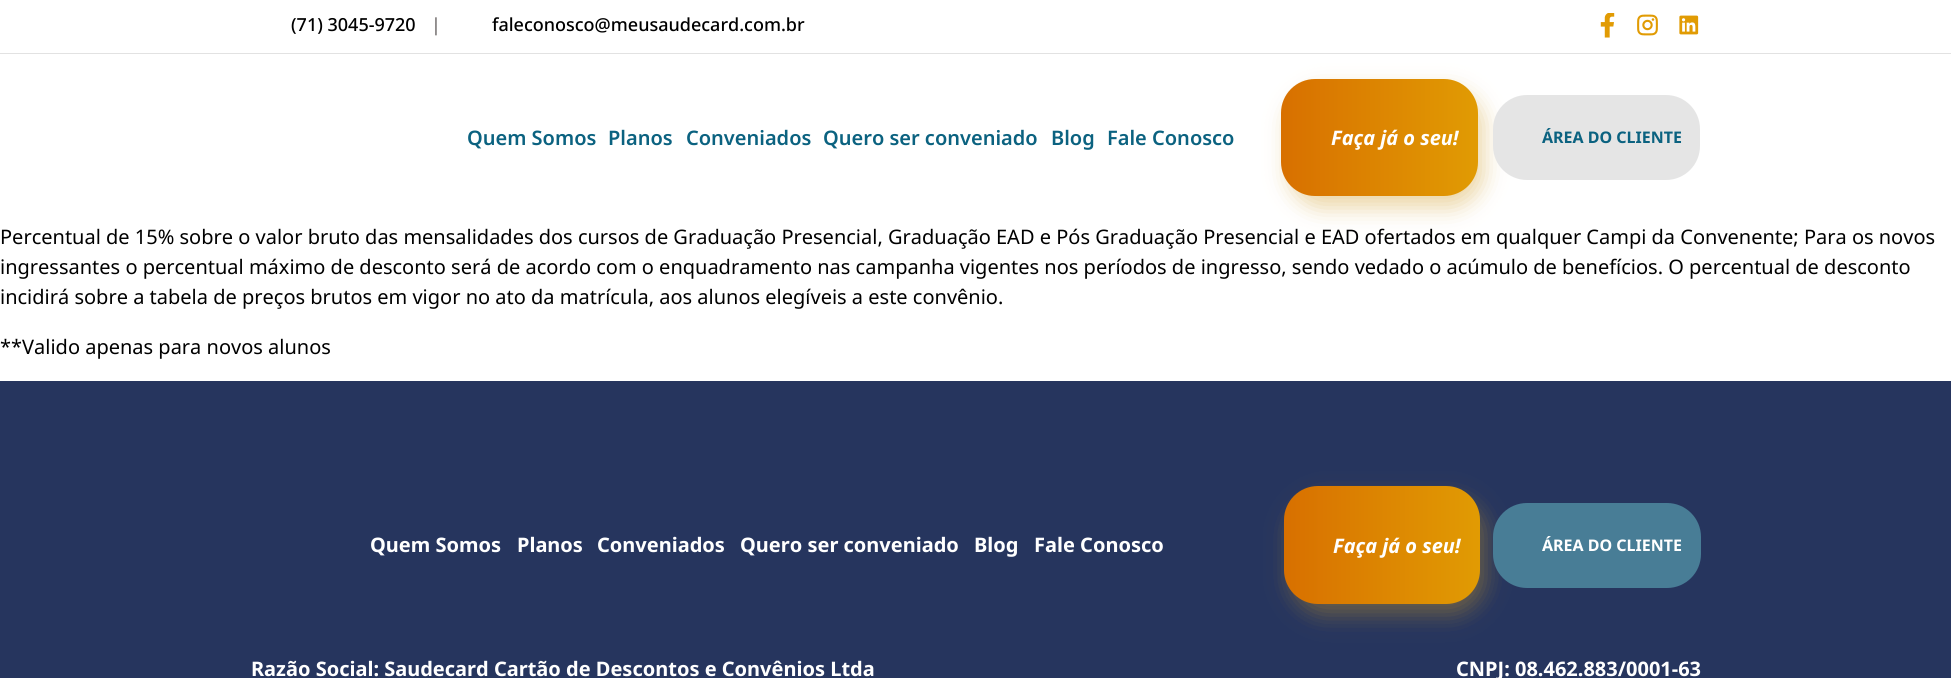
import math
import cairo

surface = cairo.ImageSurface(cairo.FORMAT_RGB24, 1951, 678)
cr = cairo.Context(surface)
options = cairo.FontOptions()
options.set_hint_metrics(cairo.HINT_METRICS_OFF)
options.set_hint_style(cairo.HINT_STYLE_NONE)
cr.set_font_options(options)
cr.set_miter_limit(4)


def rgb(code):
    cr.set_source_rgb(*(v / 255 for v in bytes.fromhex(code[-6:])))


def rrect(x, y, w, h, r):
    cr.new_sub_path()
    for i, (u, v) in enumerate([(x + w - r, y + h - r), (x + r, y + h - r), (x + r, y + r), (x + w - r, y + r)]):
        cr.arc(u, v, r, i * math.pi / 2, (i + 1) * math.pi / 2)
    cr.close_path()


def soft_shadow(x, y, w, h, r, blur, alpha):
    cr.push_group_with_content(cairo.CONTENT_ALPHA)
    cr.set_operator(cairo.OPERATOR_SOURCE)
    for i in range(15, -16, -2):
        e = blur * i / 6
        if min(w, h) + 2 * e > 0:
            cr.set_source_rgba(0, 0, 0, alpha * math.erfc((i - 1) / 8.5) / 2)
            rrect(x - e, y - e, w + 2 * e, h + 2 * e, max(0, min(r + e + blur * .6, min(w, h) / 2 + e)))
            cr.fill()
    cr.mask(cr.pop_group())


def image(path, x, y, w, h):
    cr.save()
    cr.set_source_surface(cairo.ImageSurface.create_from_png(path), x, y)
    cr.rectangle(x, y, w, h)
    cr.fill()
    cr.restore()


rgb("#ffffff")
cr.paint()
rgb("#e2e2e2")
cr.rectangle(0, 53, 1951, 1)
cr.fill()
image("img/1.png", 1600, 13, 15, 25)
image("img/2.png", 1637, 14, 21, 22)
image("img/3.png", 1679, 15, 20, 20)
rgb("#cf9a25")
soft_shadow(1288, 90, 196, 118, 34, 11, 0.4)
gradient = cairo.LinearGradient(1281, 138, 1478, 138)
gradient.add_color_stop_rgba(0, 0.847, 0.439, 0, 1)
gradient.add_color_stop_rgba(1, 0.882, 0.608, 0.012, 1)
cr.set_source(gradient)
rrect(1281, 79, 197, 117, 34)
cr.fill()
rgb("#e5e5e5")
rrect(1493, 95, 207, 85, 34)
cr.fill()
rgb("#26355e")
cr.rectangle(0, 381, 1951, 297)
cr.fill()
rgb("#cf9a25")
soft_shadow(1290, 498, 196, 117, 34, 11, 0.4)
gradient = cairo.LinearGradient(1284, 545, 1480, 545)
gradient.add_color_stop_rgba(0, 0.847, 0.439, 0, 1)
gradient.add_color_stop_rgba(1, 0.882, 0.608, 0.012, 1)
cr.set_source(gradient)
rrect(1284, 486, 196, 118, 34)
cr.fill()
rgb("#487d96")
rrect(1493, 503, 208, 85, 34)
cr.fill()
cr.select_font_face("Noto Sans Medium")
cr.set_font_size(18)
rgb("#000000")
cr.move_to(291, 31)
cr.show_text("(71) 3045-9720")
cr.select_font_face("Noto Sans")
rgb("#605b5b")
cr.move_to(431, 31)
cr.show_text("|")
cr.select_font_face("Noto Sans Medium")
rgb("#000000")
cr.move_to(492, 31)
cr.show_text("faleconosco@meusaudecard.com.br")
cr.select_font_face("Noto Sans SemiBold")
cr.set_font_size(20)
rgb("#0b6280")
for x, y, s in [
    (467, 145, "Quem Somos"),
    (608, 145, "Planos"),
    (686, 145, "Conveniados"),
    (823, 145, "Quero ser conveniado"),
    (1051, 145, "Blog"),
    (1107, 145, "Fale Conosco"),
]:
    cr.move_to(x, y)
    cr.show_text(s)
cr.select_font_face("Noto Sans", cairo.FONT_SLANT_ITALIC, cairo.FONT_WEIGHT_BOLD)
rgb("#ffffff")
cr.move_to(1331, 145)
cr.show_text("Faça já o seu!")
cr.select_font_face("Noto Sans", cairo.FONT_SLANT_NORMAL, cairo.FONT_WEIGHT_BOLD)
cr.set_font_size(16)
rgb("#0b6280")
cr.move_to(1542, 143)
cr.show_text("ÁREA DO CLIENTE")
cr.select_font_face("Noto Sans")
cr.set_font_size(20)
rgb("#000000")
for x, y, s in [
    (0, 244, "Percentual de 15% sobre o valor bruto das mensalidades dos cursos de Graduação Presencial, Graduação EAD e Pós Graduação Presencial e EAD ofertados em qualquer Campi da Convenente; Para os novos"),
    (0, 274, "ingressantes o percentual máximo de desconto será de acordo com o enquadramento nas campanha vigentes nos períodos de ingresso, sendo vedado o acúmulo de benefícios. O percentual de desconto"),
    (0, 304, "incidirá sobre a tabela de preços brutos em vigor no ato da matrícula, aos alunos elegíveis a este convênio."),
    (0, 354, "**Valido apenas para novos alunos"),
]:
    cr.move_to(x, y)
    cr.show_text(s)
cr.select_font_face("Noto Sans", cairo.FONT_SLANT_NORMAL, cairo.FONT_WEIGHT_BOLD)
rgb("#ffffff")
for x, y, s in [
    (370, 552, "Quem Somos"),
    (517, 552, "Planos"),
    (597, 552, "Conveniados"),
    (740, 552, "Quero ser conveniado"),
    (974, 552, "Blog"),
    (1034, 552, "Fale Conosco"),
]:
    cr.move_to(x, y)
    cr.show_text(s)
cr.select_font_face("Noto Sans", cairo.FONT_SLANT_ITALIC, cairo.FONT_WEIGHT_BOLD)
cr.move_to(1333, 553)
cr.show_text("Faça já o seu!")
cr.select_font_face("Noto Sans", cairo.FONT_SLANT_NORMAL, cairo.FONT_WEIGHT_BOLD)
cr.set_font_size(16)
cr.move_to(1542, 551)
cr.show_text("ÁREA DO CLIENTE")
cr.set_font_size(20)
cr.move_to(251, 676)
cr.show_text("Razão Social: Saudecard Cartão de Descontos e Convênios Ltda")
cr.move_to(1456, 676)
cr.show_text("CNPJ: 08.462.883/0001-63")
surface.write_to_png("page.png")
